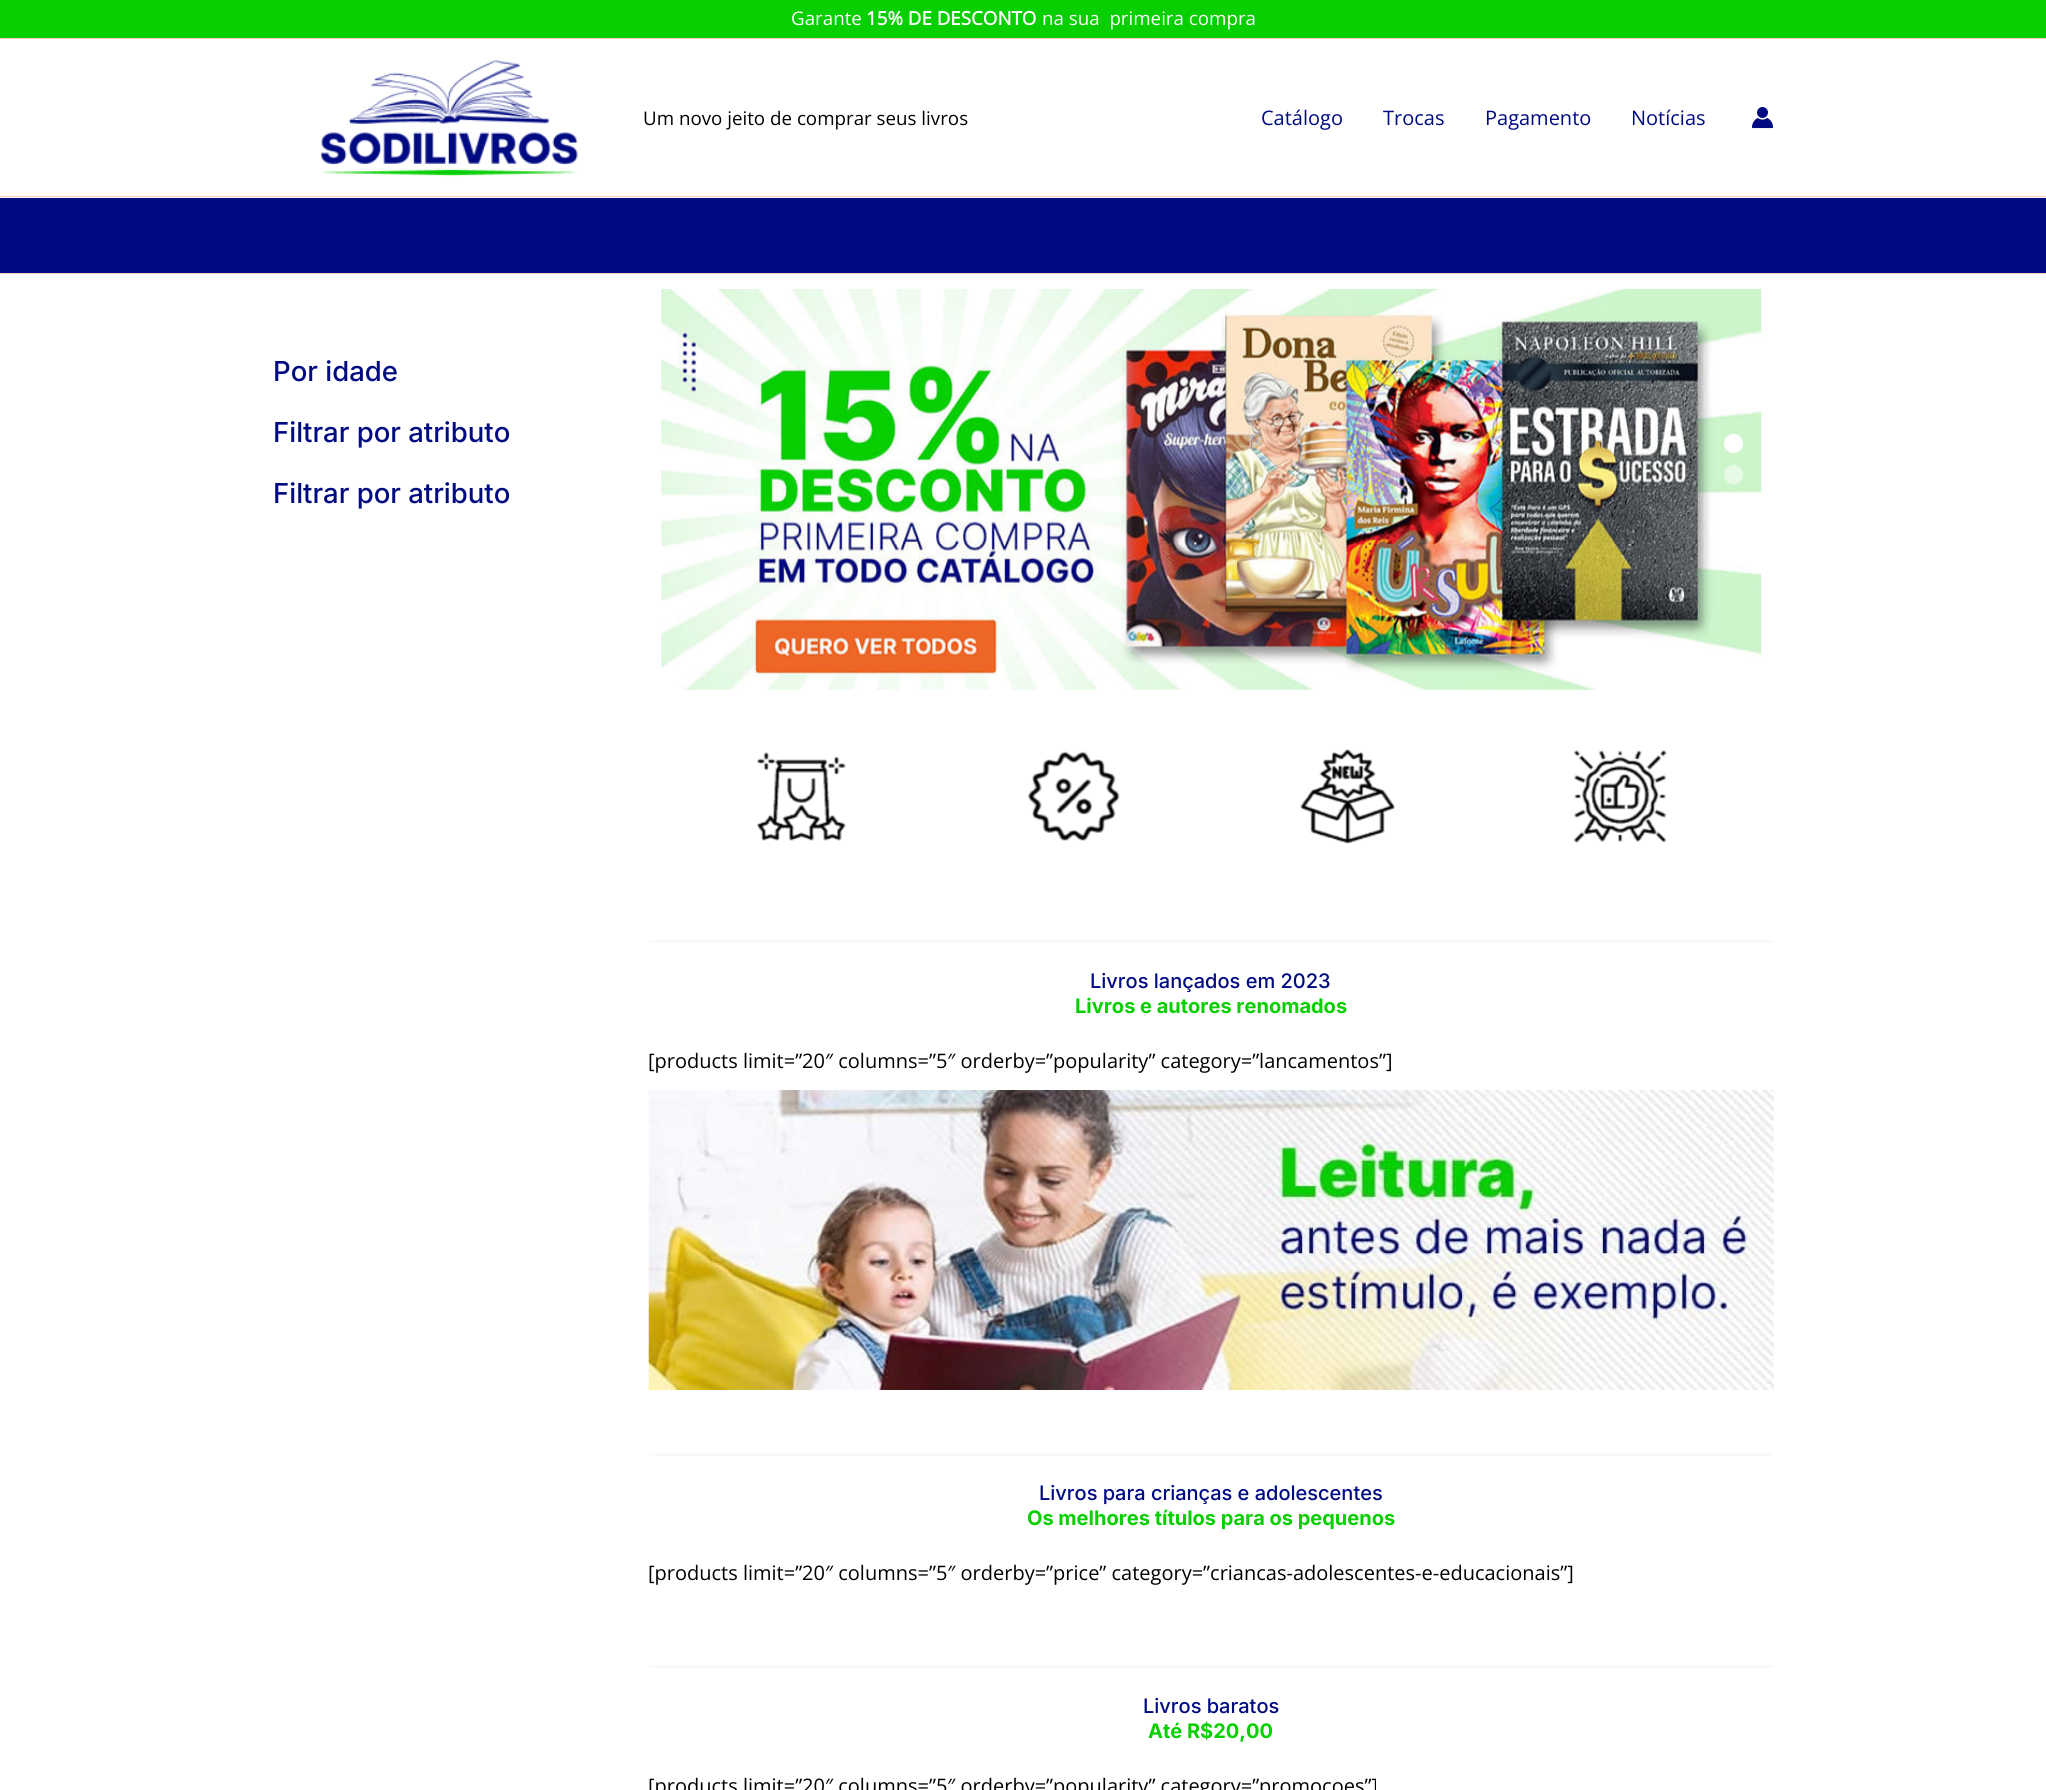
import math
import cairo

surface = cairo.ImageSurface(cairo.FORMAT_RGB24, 2046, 1790)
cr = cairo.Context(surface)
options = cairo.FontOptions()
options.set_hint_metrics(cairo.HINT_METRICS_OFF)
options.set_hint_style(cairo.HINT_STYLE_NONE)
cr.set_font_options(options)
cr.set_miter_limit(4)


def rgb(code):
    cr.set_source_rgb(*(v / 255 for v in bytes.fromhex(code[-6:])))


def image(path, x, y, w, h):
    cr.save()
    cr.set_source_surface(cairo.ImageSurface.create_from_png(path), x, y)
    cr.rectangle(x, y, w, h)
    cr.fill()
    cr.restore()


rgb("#ffffff")
cr.paint()
for x, y, w, h, color in [
    (0, 0, 2046, 38, "#07cf00"),
    (0, 38, 2046, 1, "#fccbba"),
    (0, 196, 2046, 1, "#fccbba"),
]:
    rgb(color)
    cr.rectangle(x, y, w, h)
    cr.fill()
image("img/1.png", 320, 59, 258, 118)
image("img/2.png", 1752, 107, 22, 22)
rgb("#000b82")
cr.rectangle(0, 198, 2046, 75)
cr.fill()
rgb("#fccbba")
cr.rectangle(0, 273, 2046, 1)
cr.fill()
image("img/3.png", 661, 289, 1101, 401)
rgb("#ffffff")
cr.arc(1733.5, 443.5, 9.5, 0, 2 * math.pi)
cr.fill()
rgb("#e6fae5")
cr.arc(1733.5, 474.5, 9.5, 0, 2 * math.pi)
cr.fill()
image("img/4.png", 757, 752, 89, 89)
image("img/5.png", 1028, 751, 92, 90)
image("img/6.png", 1300, 749, 95, 95)
image("img/7.png", 1573, 750, 94, 93)
rgb("#f8f9f9")
cr.rectangle(649, 940, 1125, 3)
cr.fill()
image("img/8.png", 648, 1090, 1126, 300)
cr.rectangle(649, 1453, 1125, 3)
cr.fill()
cr.rectangle(649, 1665, 1125, 3)
cr.fill()
cr.select_font_face("Open Sans")
cr.set_font_size(18.75)
rgb("#ffffff")
cr.move_to(791, 25)
cr.show_text("Garante")
cr.select_font_face("Open Sans", cairo.FONT_SLANT_NORMAL, cairo.FONT_WEIGHT_BOLD)
cr.move_to(866, 25)
cr.show_text("15% DE DESCONTO")
cr.select_font_face("Open Sans")
cr.move_to(1042, 25)
cr.show_text("na sua  primeira compra")
rgb("#000000")
cr.move_to(643, 125)
cr.show_text("Um novo jeito de comprar seus livros")
cr.set_font_size(20)
rgb("#000b82")
for x, y, s in [
    (1261, 125, "Catálogo"),
    (1383, 125, "Trocas"),
    (1485, 125, "Pagamento"),
    (1631, 125, "Notícias"),
]:
    cr.move_to(x, y)
    cr.show_text(s)
cr.select_font_face("Inter Medium")
cr.set_font_size(27.5)
for x, y, s in [
    (273, 381, "Por idade"),
    (273, 442, "Filtrar por atributo"),
    (273, 503, "Filtrar por atributo"),
]:
    cr.move_to(x, y)
    cr.show_text(s)
cr.set_font_size(20)
cr.move_to(1090, 988)
cr.show_text("Livros lançados em 2023")
cr.select_font_face("Inter", cairo.FONT_SLANT_NORMAL, cairo.FONT_WEIGHT_BOLD)
rgb("#07cf00")
cr.move_to(1075, 1013)
cr.show_text("Livros e autores renomados")
cr.select_font_face("Open Sans")
rgb("#000000")
cr.move_to(648, 1068)
cr.show_text("[products limit=”20″ columns=”5″ orderby=”popularity” category=”lancamentos”]")
cr.select_font_face("Inter Medium")
rgb("#000b82")
cr.move_to(1039, 1500)
cr.show_text("Livros para crianças e adolescentes")
cr.select_font_face("Inter", cairo.FONT_SLANT_NORMAL, cairo.FONT_WEIGHT_BOLD)
rgb("#07cf00")
cr.move_to(1027, 1525)
cr.show_text("Os melhores títulos para os pequenos")
cr.select_font_face("Open Sans")
rgb("#000000")
cr.move_to(648, 1580)
cr.show_text("[products limit=”20″ columns=”5″ orderby=”price” category=”criancas-adolescentes-e-educacionais”]")
cr.select_font_face("Inter Medium")
rgb("#000b82")
cr.move_to(1143, 1713)
cr.show_text("Livros baratos")
cr.select_font_face("Inter", cairo.FONT_SLANT_NORMAL, cairo.FONT_WEIGHT_BOLD)
rgb("#07cf00")
cr.move_to(1148, 1738)
cr.show_text("Até R$20,00")
cr.select_font_face("Open Sans")
rgb("#000000")
cr.move_to(648, 1793)
cr.show_text("[products limit=”20″ columns=”5″ orderby=”popularity” category=”promocoes”]")
surface.write_to_png("page.png")
